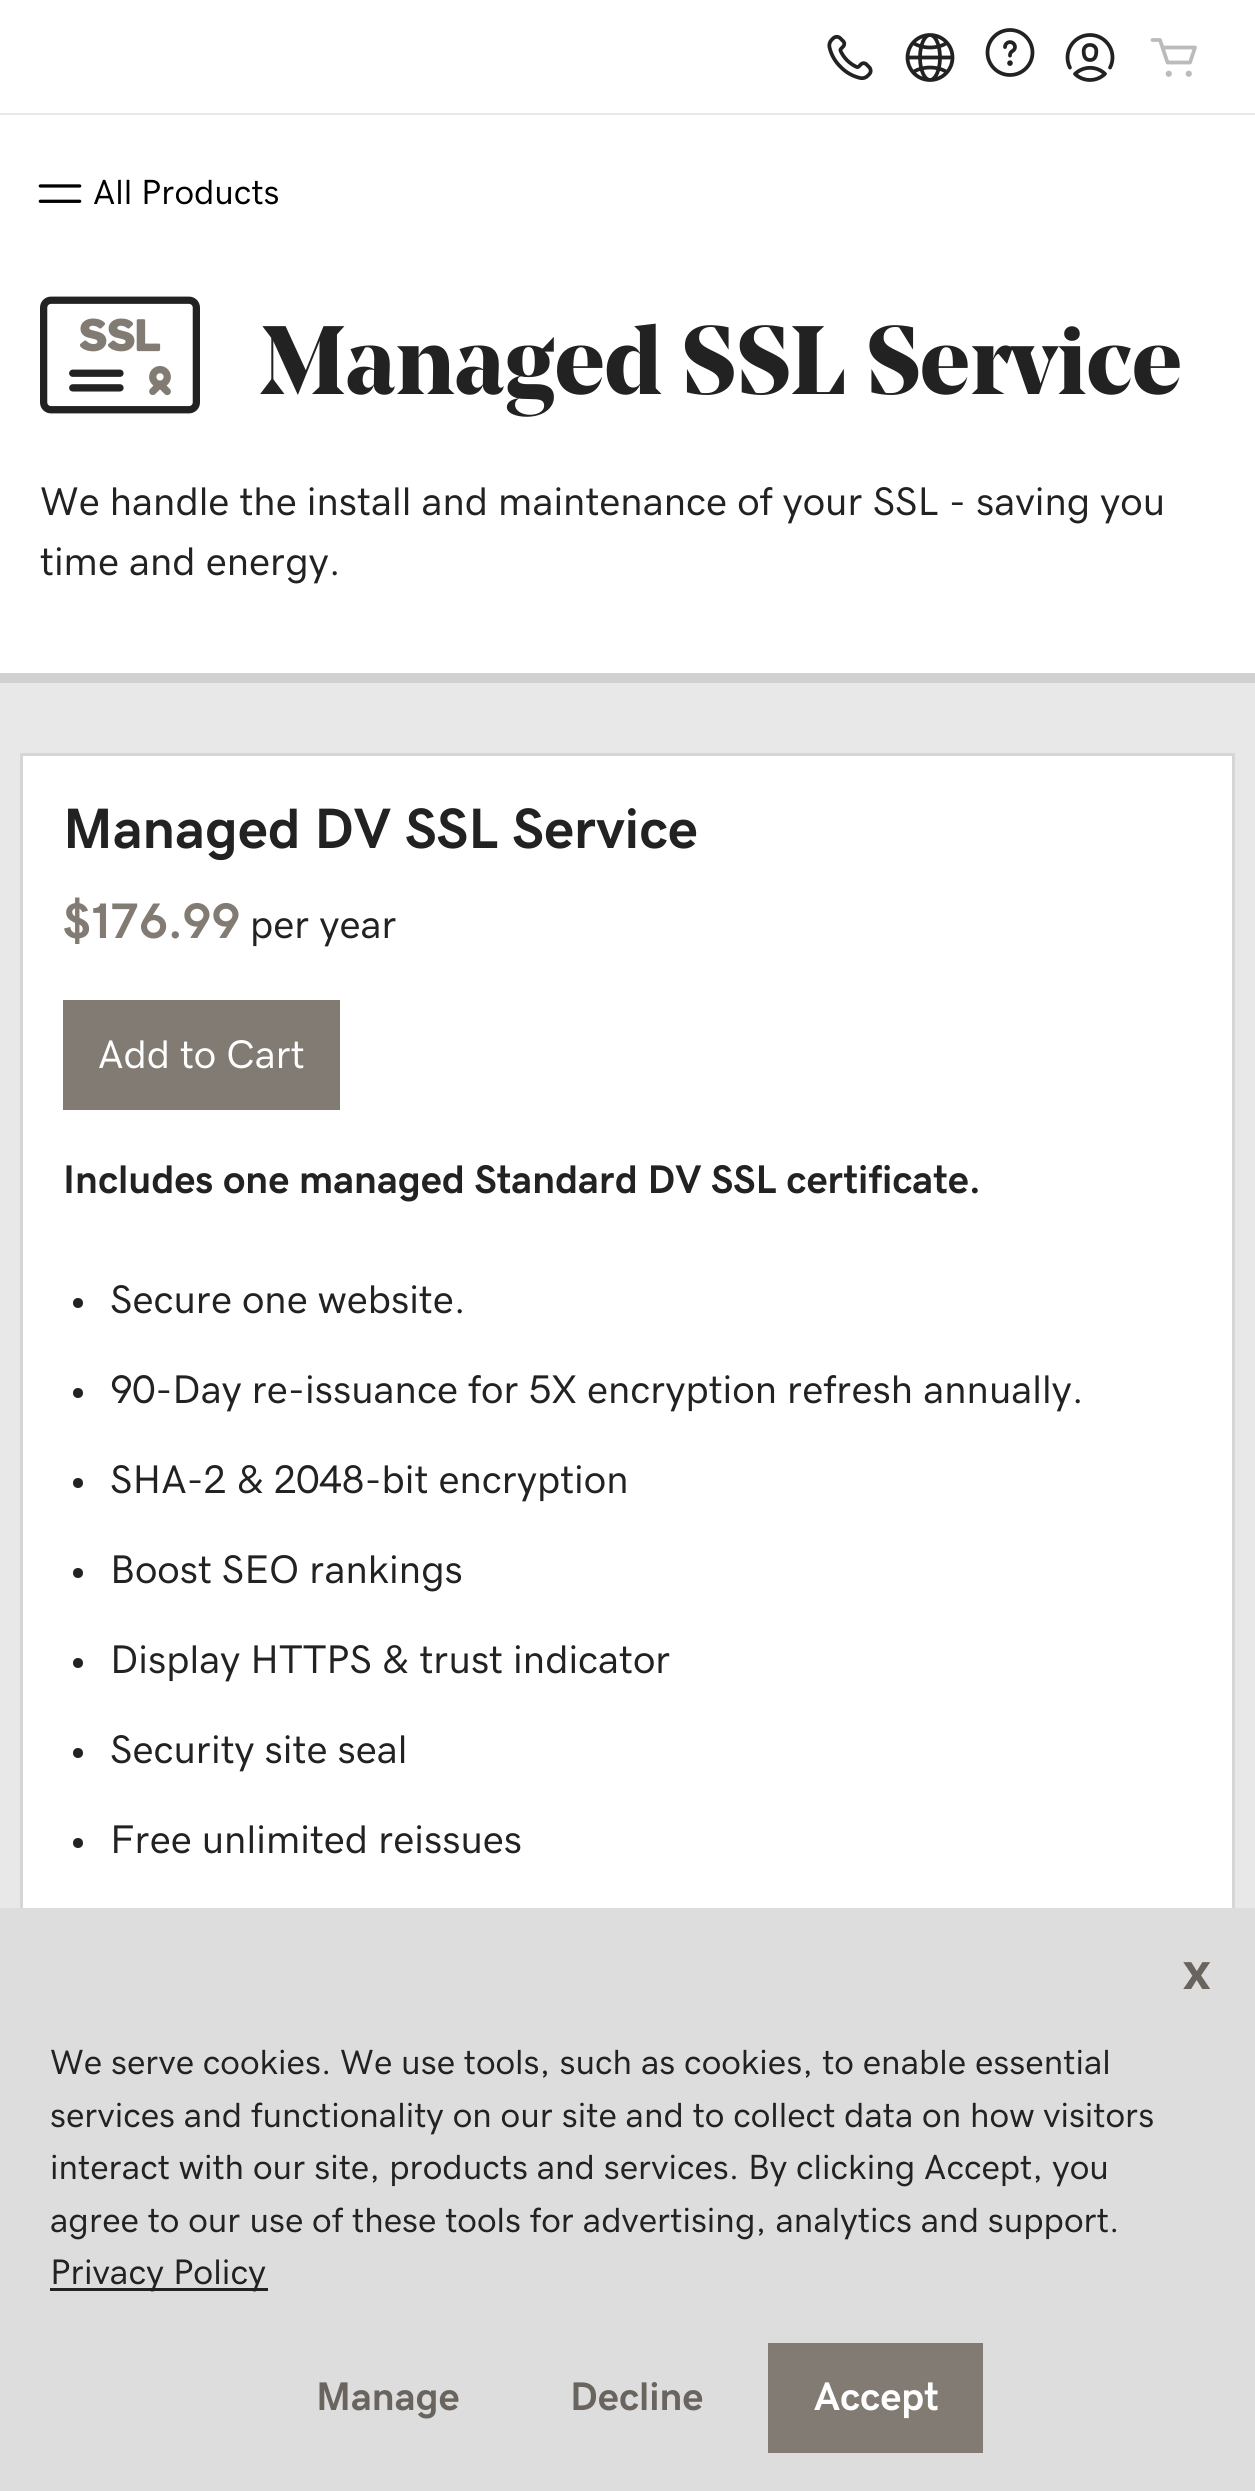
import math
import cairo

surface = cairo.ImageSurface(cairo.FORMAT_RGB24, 1255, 2491)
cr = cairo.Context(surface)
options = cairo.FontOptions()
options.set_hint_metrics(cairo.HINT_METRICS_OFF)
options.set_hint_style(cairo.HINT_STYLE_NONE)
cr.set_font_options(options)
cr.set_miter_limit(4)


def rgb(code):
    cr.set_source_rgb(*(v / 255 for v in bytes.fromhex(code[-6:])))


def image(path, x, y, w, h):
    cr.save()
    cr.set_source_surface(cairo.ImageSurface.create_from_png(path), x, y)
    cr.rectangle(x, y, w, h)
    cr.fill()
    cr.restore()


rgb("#e8e8e8")
cr.paint()
rgb("#ffffff")
cr.rectangle(0, 0, 1255, 113)
cr.fill()
image("img/1.png", 827, 34, 46, 47)
image("img/2.png", 905, 33, 50, 49)
image("img/3.png", 985, 28, 50, 49)
image("img/4.png", 1065, 33, 50, 49)
image("img/5.png", 1150, 38, 47, 39)
cr.rectangle(0, 115, 1255, 558)
cr.fill()
image("img/6.png", 38, 184, 44, 19)
rgb("#d1d1d1")
cr.rectangle(0, 673, 1255, 10)
cr.fill()
image("img/7.png", 40, 296, 160, 118)
rgb("#ffffff")
cr.rectangle(23, 756, 1209, 1152)
cr.fill()
cr.rectangle(21.5, 754.5, 1212, 1377)
rgb("#d6d6d6")
cr.set_line_width(3)
cr.stroke()
rgb("#827b74")
cr.rectangle(63, 1000, 277, 110)
cr.fill()
rgb("#222222")
cr.arc(78, 1303, 5, 0, 2 * math.pi)
cr.fill()
cr.arc(78, 1393, 5, 0, 2 * math.pi)
cr.fill()
cr.arc(78, 1483, 5, 0, 2 * math.pi)
cr.fill()
cr.arc(78, 1573, 5, 0, 2 * math.pi)
cr.fill()
cr.arc(78, 1663, 5, 0, 2 * math.pi)
cr.fill()
cr.arc(78, 1753, 5, 0, 2 * math.pi)
cr.fill()
cr.arc(78, 1843, 5, 0, 2 * math.pi)
cr.fill()
for x, y, w, h, color in [
    (0, 1908, 1255, 583, "#dddddd"),
    (50, 2288, 218, 3, "#222222"),
    (768, 2343, 215, 110, "#827b74"),
]:
    rgb(color)
    cr.rectangle(x, y, w, h)
    cr.fill()
cr.select_font_face("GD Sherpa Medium")
cr.set_font_size(35)
rgb("#000000")
cr.move_to(93, 204)
cr.show_text("All Products")
cr.select_font_face("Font", cairo.FONT_SLANT_NORMAL, cairo.FONT_WEIGHT_BOLD)
cr.set_font_size(91.25)
rgb("#222222")
cr.move_to(260, 394)
cr.show_text("Managed SSL Service")
cr.select_font_face("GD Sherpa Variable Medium")
cr.set_font_size(40)
cr.move_to(40, 515)
cr.show_text("We handle the install and maintenance of your SSL - saving you")
cr.move_to(40, 575)
cr.show_text("time and energy.")
cr.select_font_face("GD Sherpa Variable", cairo.FONT_SLANT_NORMAL, cairo.FONT_WEIGHT_BOLD)
cr.set_font_size(57)
cr.move_to(63, 848)
cr.show_text("Managed DV SSL Service")
cr.set_font_size(50)
rgb("#827b74")
cr.move_to(63, 938)
cr.show_text("$176.99")
cr.select_font_face("GD Sherpa Variable Medium")
cr.set_font_size(40)
rgb("#222222")
cr.move_to(250, 938)
cr.show_text("per year")
rgb("#ffffff")
cr.move_to(98, 1068)
cr.show_text("Add to Cart")
cr.select_font_face("GD Sherpa Variable", cairo.FONT_SLANT_NORMAL, cairo.FONT_WEIGHT_BOLD)
rgb("#222222")
cr.move_to(63, 1193)
cr.show_text("Includes one managed Standard DV SSL certificate.")
cr.select_font_face("GD Sherpa Variable Medium")
for x, y, s in [
    (110, 1313, "Secure one website."),
    (110, 1403, "90-Day re-issuance for 5X encryption refresh annually."),
    (110, 1493, "SHA-2 & 2048-bit encryption"),
    (110, 1583, "Boost SEO rankings"),
    (110, 1673, "Display HTTPS & trust indicator"),
    (110, 1763, "Security site seal"),
    (110, 1853, "Free unlimited reissues"),
]:
    cr.move_to(x, y)
    cr.show_text(s)
cr.select_font_face("GD Sherpa Variable", cairo.FONT_SLANT_NORMAL, cairo.FONT_WEIGHT_BOLD)
cr.set_font_size(55)
rgb("#6a645e")
cr.move_to(1183, 1989)
cr.show_text("x")
cr.select_font_face("GD Sherpa Variable Medium")
cr.set_font_size(35)
rgb("#222222")
for x, y, s in [
    (50, 2074, "We serve cookies. We use tools, such as cookies, to enable essential"),
    (50, 2127, "services and functionality on our site and to collect data on how visitors"),
    (50, 2179, "interact with our site, products and services. By clicking Accept, you"),
    (50, 2232, "agree to our use of these tools for advertising, analytics and support."),
]:
    cr.move_to(x, y)
    cr.show_text(s)
cr.set_font_size(35.5)
cr.move_to(50, 2284)
cr.show_text("Privacy Policy")
cr.select_font_face("GD Sherpa Variable", cairo.FONT_SLANT_NORMAL, cairo.FONT_WEIGHT_BOLD)
cr.set_font_size(40)
rgb("#6a645e")
cr.move_to(316, 2410)
cr.show_text("Manage")
cr.move_to(570, 2410)
cr.show_text("Decline")
rgb("#ffffff")
cr.move_to(814, 2410)
cr.show_text("Accept")
surface.write_to_png("page.png")
